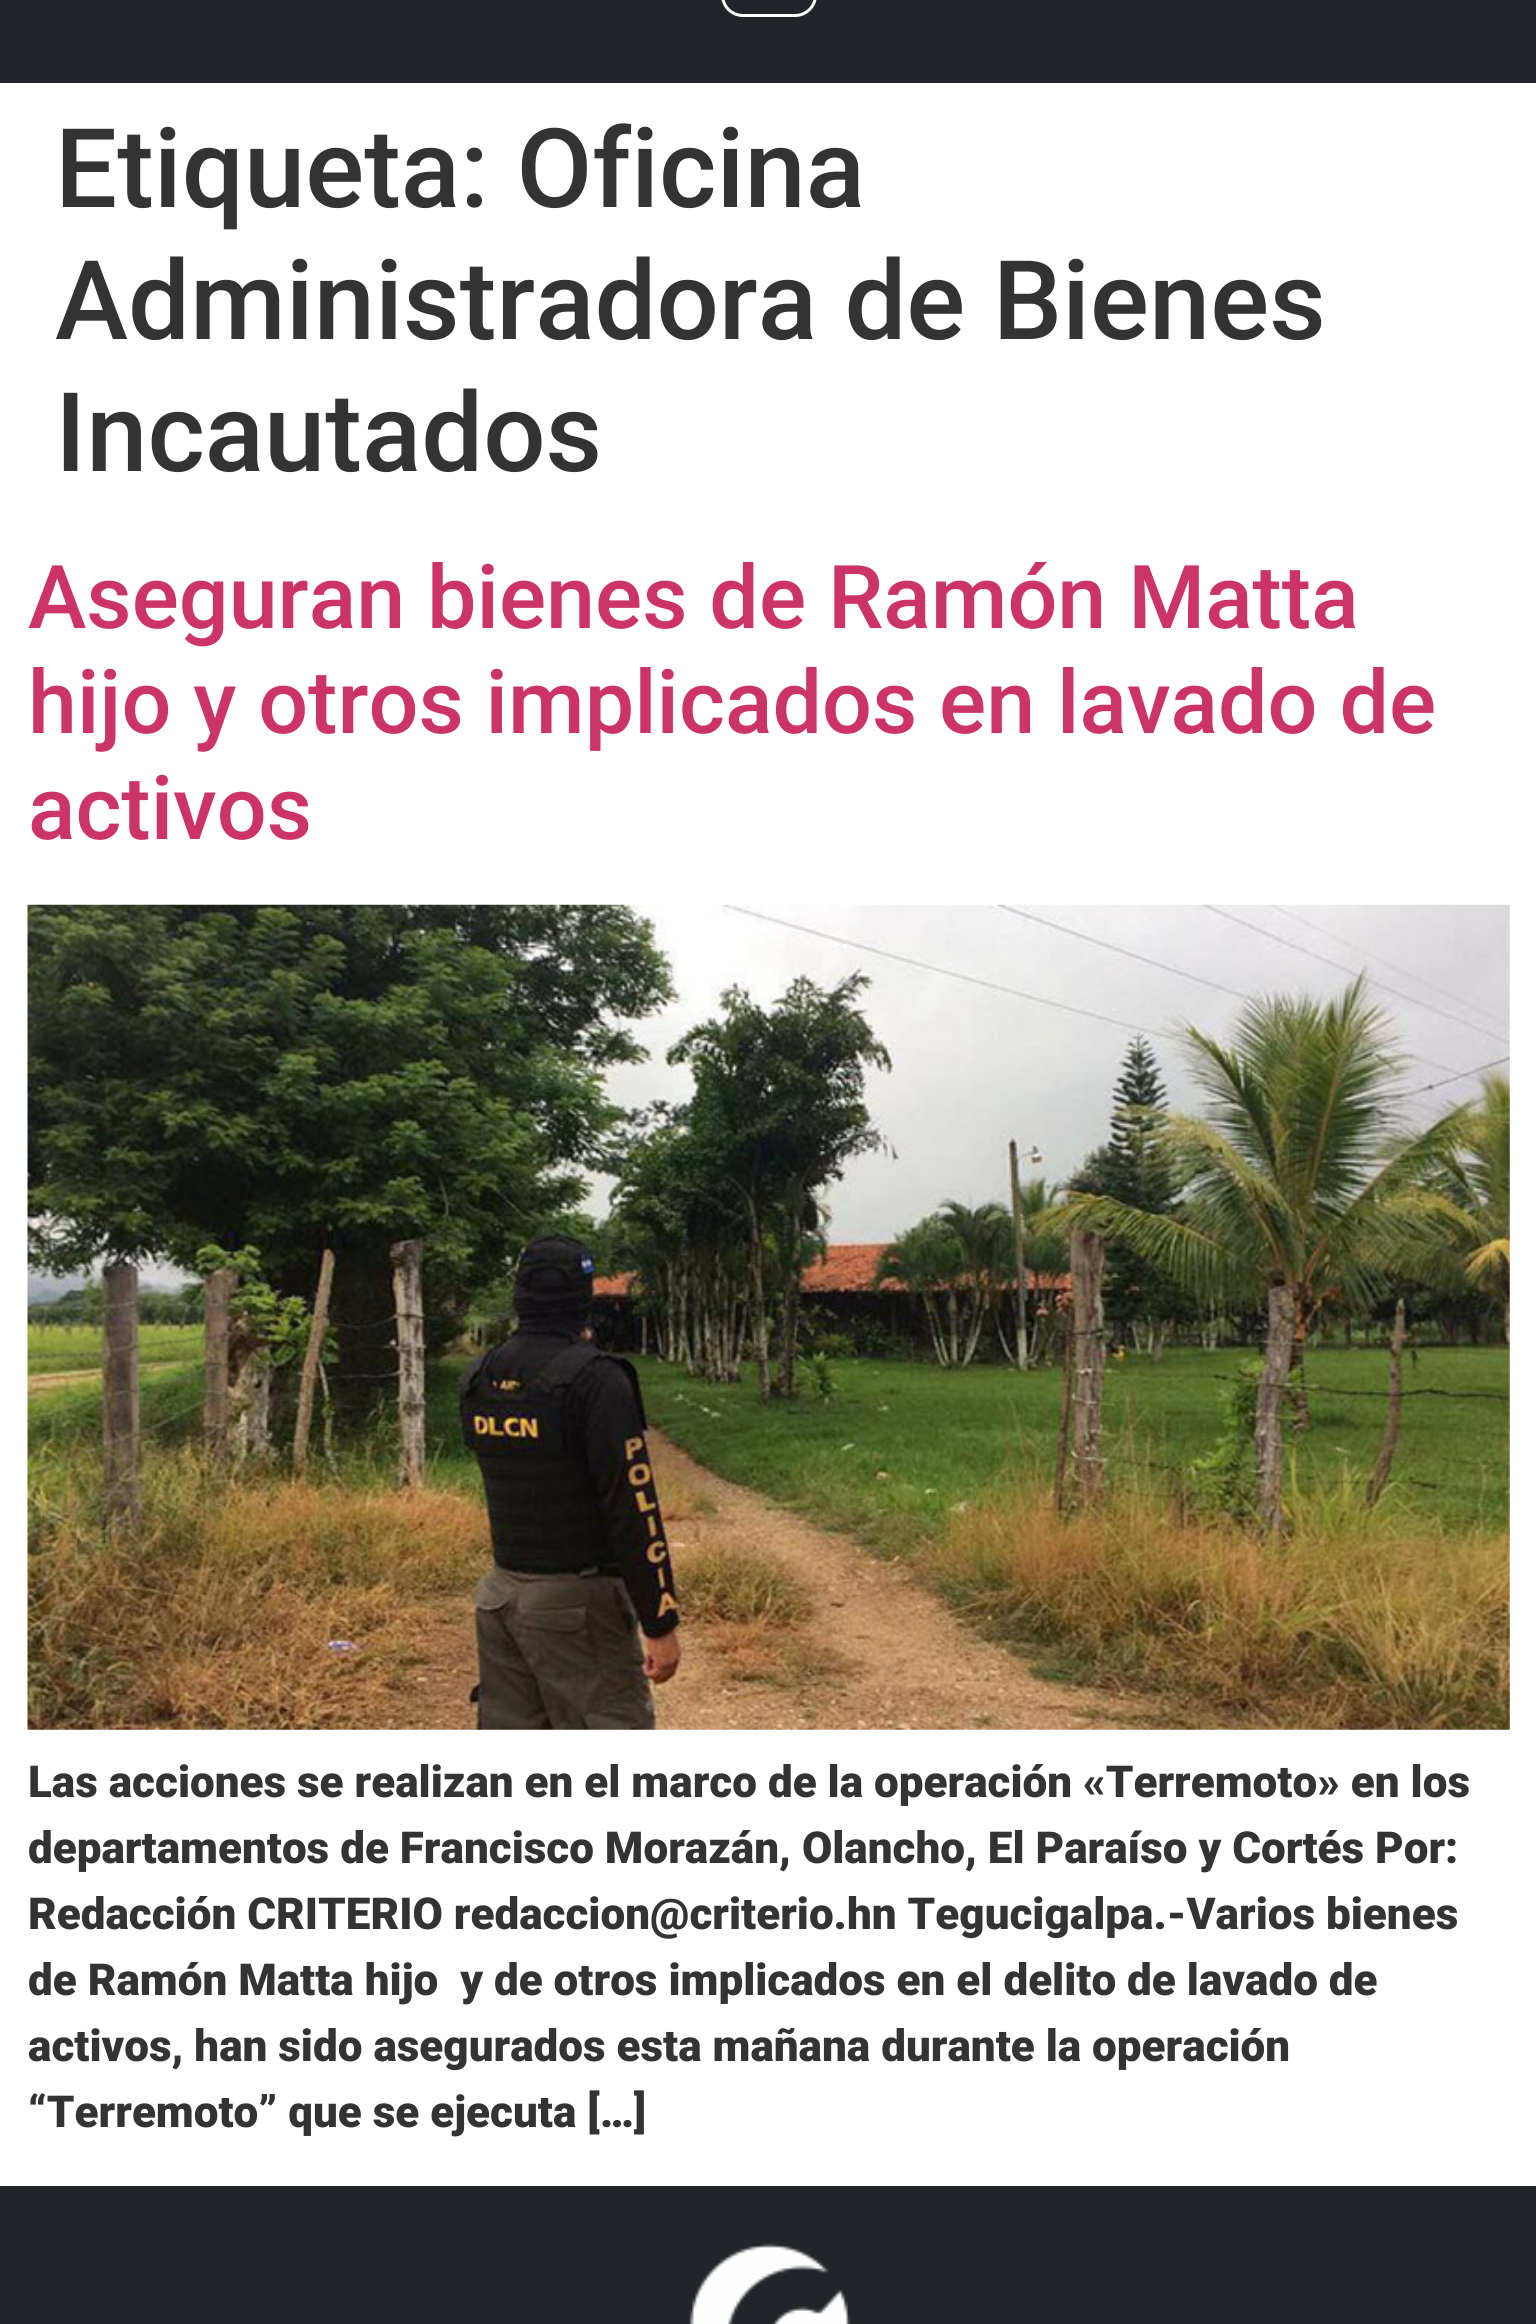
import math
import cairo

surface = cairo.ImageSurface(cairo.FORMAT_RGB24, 1536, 2324)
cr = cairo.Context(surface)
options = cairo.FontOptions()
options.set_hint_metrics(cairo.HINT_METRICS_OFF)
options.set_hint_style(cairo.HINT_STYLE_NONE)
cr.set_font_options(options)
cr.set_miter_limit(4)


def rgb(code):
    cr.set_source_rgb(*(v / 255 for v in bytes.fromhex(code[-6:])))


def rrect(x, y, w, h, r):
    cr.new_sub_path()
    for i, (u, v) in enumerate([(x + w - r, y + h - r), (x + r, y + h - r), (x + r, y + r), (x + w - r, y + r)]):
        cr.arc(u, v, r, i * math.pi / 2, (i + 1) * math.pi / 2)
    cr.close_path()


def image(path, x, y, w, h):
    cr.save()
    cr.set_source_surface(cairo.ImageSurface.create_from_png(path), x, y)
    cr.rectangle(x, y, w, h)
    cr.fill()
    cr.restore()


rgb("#ffffff")
cr.paint()
rgb("#212529")
cr.rectangle(0, 0, 1536, 83)
cr.fill()
rrect(722.5, -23.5, 93, 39, 20.5)
rgb("#ffffff")
cr.set_line_width(3)
cr.stroke()
image("img/1.png", 27, 904, 1483, 826)
rgb("#212529")
cr.rectangle(0, 2186, 1536, 138)
cr.fill()
image("img/2.png", 689, 2243, 162, 81)
cr.select_font_face("Roboto Medium")
cr.set_font_size(110)
rgb("#333333")
for x, y, s in [
    (55, 207, "Etiqueta: Oficina"),
    (55, 339, "Administradora de Bienes"),
    (55, 471, "Incautados"),
]:
    cr.move_to(x, y)
    cr.show_text(s)
cr.set_font_size(88)
rgb("#cc3366")
for x, y, s in [
    (28, 628, "Aseguran bienes de Ramón Matta"),
    (28, 733, "hijo y otros implicados en lavado de"),
    (28, 839, "activos"),
]:
    cr.move_to(x, y)
    cr.show_text(s)
cr.select_font_face("Roboto Black")
cr.set_font_size(44)
rgb("#333333")
for x, y, s in [
    (28, 1797, "Las acciones se realizan en el marco de la operación «Terremoto» en los"),
    (28, 1863, "departamentos de Francisco Morazán, Olancho, El Paraíso y Cortés Por:"),
    (28, 1929, "Redacción CRITERIO redaccion@criterio.hn Tegucigalpa.-Varios bienes"),
    (28, 1995, "de Ramón Matta hijo  y de otros implicados en el delito de lavado de"),
    (28, 2061, "activos, han sido asegurados esta mañana durante la operación"),
    (28, 2127, "“Terremoto” que se ejecuta […]"),
]:
    cr.move_to(x, y)
    cr.show_text(s)
surface.write_to_png("page.png")
